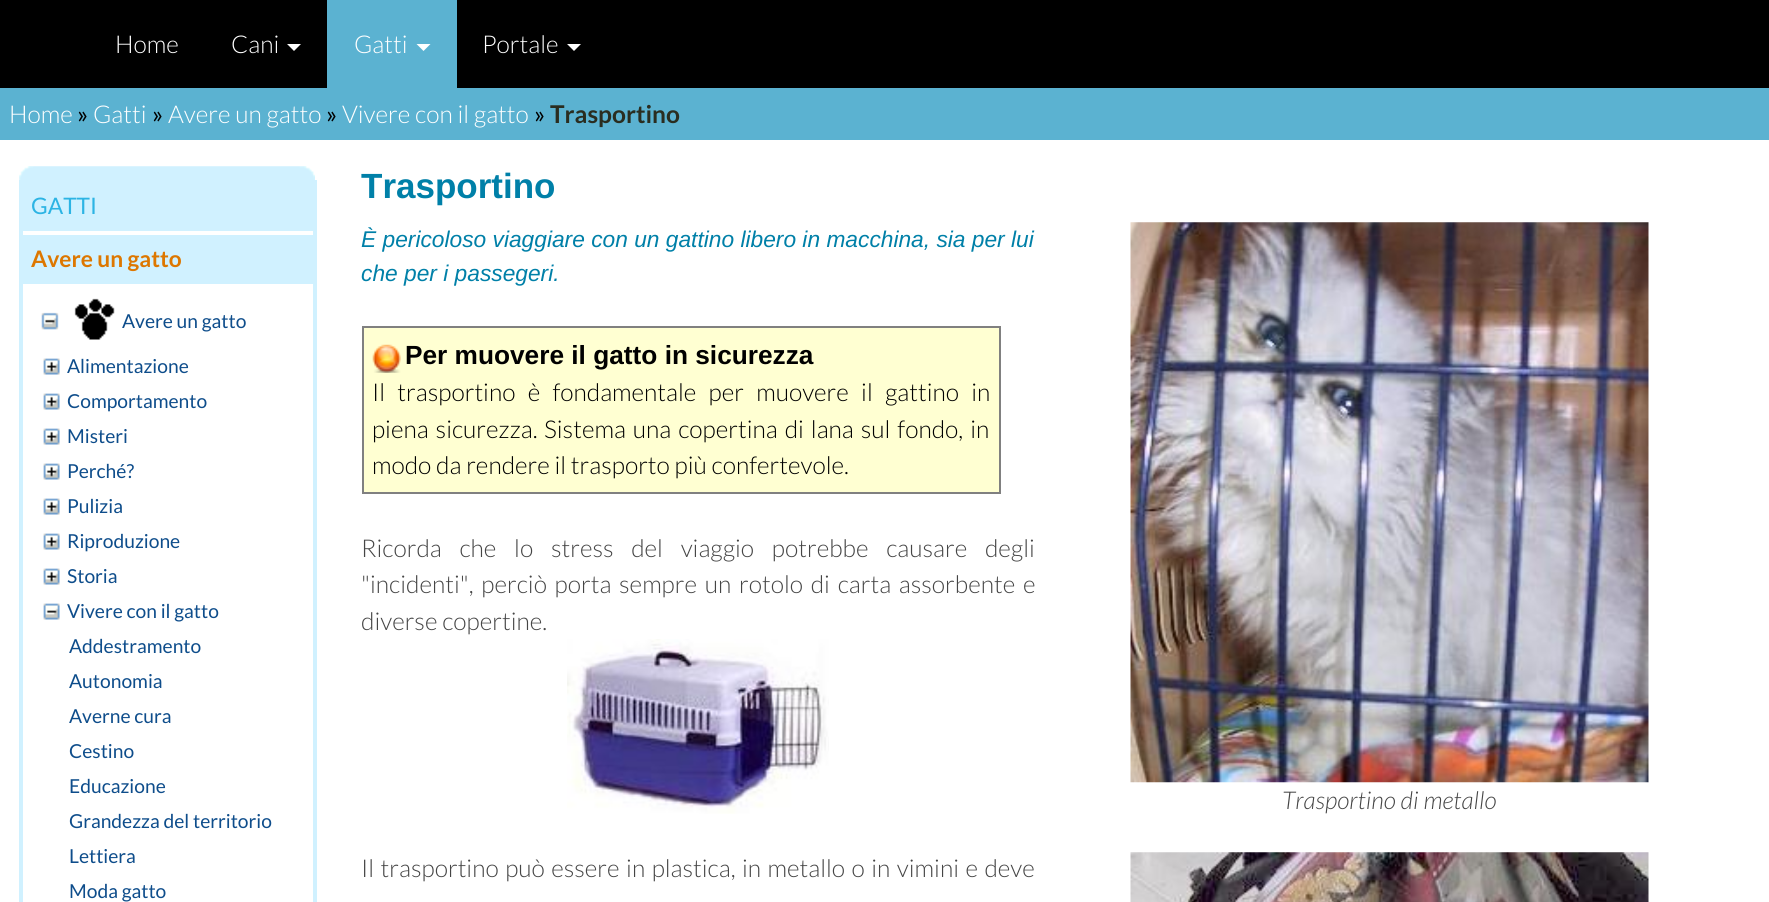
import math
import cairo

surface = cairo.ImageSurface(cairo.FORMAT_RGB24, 1769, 902)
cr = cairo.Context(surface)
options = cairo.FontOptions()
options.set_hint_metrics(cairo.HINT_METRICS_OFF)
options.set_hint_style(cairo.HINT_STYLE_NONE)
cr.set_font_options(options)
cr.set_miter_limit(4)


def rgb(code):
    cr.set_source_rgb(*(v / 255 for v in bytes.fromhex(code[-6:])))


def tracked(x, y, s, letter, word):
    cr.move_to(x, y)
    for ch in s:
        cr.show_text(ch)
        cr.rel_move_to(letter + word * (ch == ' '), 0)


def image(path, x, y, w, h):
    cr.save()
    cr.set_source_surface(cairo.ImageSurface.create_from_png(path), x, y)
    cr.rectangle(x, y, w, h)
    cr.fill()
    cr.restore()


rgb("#ffffff")
cr.paint()
rgb("#000000")
cr.rectangle(0, 0, 1769, 88)
cr.fill()
rgb("#ffffff")
cr.new_path()
cr.move_to(287, 44)
cr.line_to(301, 44)
cr.line_to(294, 51)
cr.close_path()
cr.fill()
rgb("#5bb2d1")
cr.rectangle(327, 0, 130, 88)
cr.fill()
rgb("#ffffff")
cr.new_path()
cr.move_to(416.5, 44)
cr.line_to(430.5, 44)
cr.line_to(423.5, 51)
cr.close_path()
cr.fill()
cr.new_path()
cr.move_to(567, 44)
cr.line_to(581, 44)
cr.line_to(574, 51)
cr.close_path()
cr.fill()
rgb("#5bb2d1")
cr.rectangle(0, 88, 1769, 52)
cr.fill()
image("img/1.png", 19, 166, 296, 14)
for x, y, w, h, color in [
    (313, 180, 4, 722, "#d0f1ff"),
    (19, 180, 4, 722, "#d0f1ff"),
    (23, 180, 290, 51, "#d0f1ff"),
    (23, 235, 290, 49, "#d0f1ff"),
]:
    rgb(color)
    cr.rectangle(x, y, w, h)
    cr.fill()
image("img/2.png", 41, 312, 18, 18)
image("img/3.png", 74, 298, 41, 42)
image("img/4.png", 43, 358, 17, 17)
image("img/4.png", 43, 393, 17, 17)
image("img/4.png", 43, 428, 17, 17)
image("img/4.png", 43, 463, 17, 17)
image("img/4.png", 43, 498, 17, 17)
image("img/4.png", 43, 533, 17, 17)
image("img/4.png", 43, 568, 17, 17)
image("img/5.png", 43, 603, 17, 17)
rgb("#ffffd2")
cr.rectangle(363, 327, 637, 166)
cr.fill_preserve()
rgb("#808080")
cr.stroke()
image("img/6.png", 372, 344, 29, 29)
image("img/7.png", 567, 639, 262, 175)
image("img/8.png", 1130, 222, 519, 561)
image("img/9.png", 1130, 852, 519, 50)
cr.select_font_face("Lato Light")
cr.set_font_size(24.5)
rgb("#ffffff")
for x, y, s in [
    (115, 53, "Home"),
    (231, 53, "Cani"),
    (354, 53, "Gatti"),
    (482, 53, "Portale"),
    (9, 123, "Home"),
]:
    cr.move_to(x, y)
    cr.show_text(s)
cr.select_font_face("Lato")
rgb("#000000")
cr.move_to(77, 123)
cr.show_text("»")
cr.select_font_face("Lato Light")
rgb("#ffffff")
cr.move_to(93, 123)
cr.show_text("Gatti")
cr.select_font_face("Lato")
rgb("#000000")
cr.move_to(152, 123)
cr.show_text("»")
cr.select_font_face("Lato Light")
rgb("#ffffff")
cr.move_to(168, 123)
cr.show_text("Avere un gatto")
cr.select_font_face("Lato")
rgb("#000000")
cr.move_to(326, 123)
cr.show_text("»")
cr.select_font_face("Lato Light")
rgb("#ffffff")
cr.move_to(342, 123)
cr.show_text("Vivere con il gatto")
cr.select_font_face("Lato")
rgb("#000000")
cr.move_to(534, 123)
cr.show_text("»")
cr.select_font_face("Lato", cairo.FONT_SLANT_NORMAL, cairo.FONT_WEIGHT_BOLD)
rgb("#2a2d20")
cr.move_to(550, 123)
cr.show_text("Trasportino")
cr.select_font_face("Lato")
cr.set_font_size(22.75)
rgb("#2cb4e4")
cr.move_to(31, 214)
cr.show_text("GATTI")
cr.select_font_face("Lato", cairo.FONT_SLANT_NORMAL, cairo.FONT_WEIGHT_BOLD)
rgb("#dd7700")
cr.move_to(31, 267)
cr.show_text("Avere un gatto")
cr.select_font_face("Lato")
cr.set_font_size(19.25)
rgb("#0e4d8b")
for x, y, s in [
    (122, 328, "Avere un gatto"),
    (67, 373, "Alimentazione"),
    (67, 408, "Comportamento"),
    (67, 443, "Misteri"),
    (67, 478, "Perché?"),
    (67, 513, "Pulizia"),
    (67, 548, "Riproduzione"),
    (67, 583, "Storia"),
    (67, 618, "Vivere con il gatto"),
    (69, 653, "Addestramento"),
    (69, 688, "Autonomia"),
    (69, 723, "Averne cura"),
    (69, 758, "Cestino"),
    (69, 793, "Educazione"),
    (69, 828, "Grandezza del territorio"),
    (69, 863, "Lettiera"),
    (69, 898, "Moda gatto"),
]:
    cr.move_to(x, y)
    cr.show_text(s)
cr.select_font_face("Liberation Sans", cairo.FONT_SLANT_NORMAL, cairo.FONT_WEIGHT_BOLD)
cr.set_font_size(35)
rgb("#0080a8")
cr.move_to(361, 198)
cr.show_text("Trasportino")
cr.select_font_face("Liberation Sans", cairo.FONT_SLANT_ITALIC)
cr.set_font_size(22.75)
cr.move_to(361, 247)
cr.show_text("È pericoloso viaggiare con un gattino libero in macchina, sia per lui")
cr.move_to(361, 281)
cr.show_text("che per i passegeri.")
cr.select_font_face("Liberation Sans", cairo.FONT_SLANT_NORMAL, cairo.FONT_WEIGHT_BOLD)
cr.set_font_size(26.25)
rgb("#000000")
cr.move_to(405, 364)
cr.show_text("Per muovere il gatto in sicurezza")
cr.select_font_face("Lato Light")
cr.set_font_size(24.5)
tracked(372, 401, "Il trasportino è fondamentale per muovere il gattino in", 0, 7.5)
tracked(372, 438, "piena sicurezza.", 0, 2.25)
tracked(544, 438, "Sistema una copertina di lana sul fondo, in", 0, 2.25)
cr.move_to(372, 474)
cr.show_text("modo da rendere il trasporto più confertevole.")
rgb("#454545")
tracked(361, 557, "Ricorda che lo stress del viaggio potrebbe causare degli", 0, 13)
tracked(361, 593, "\"incidenti\", perciò porta sempre un rotolo di carta assorbente e", 0, 3)
cr.move_to(361, 630)
cr.show_text("diverse copertine.")
tracked(361, 877, "Il trasportino può essere in plastica, in metallo o in vimini e deve", 0, 1.75)
cr.select_font_face("Lato Light", cairo.FONT_SLANT_ITALIC)
cr.move_to(1282, 809)
cr.show_text("Trasportino di metallo")
surface.write_to_png("page.png")
